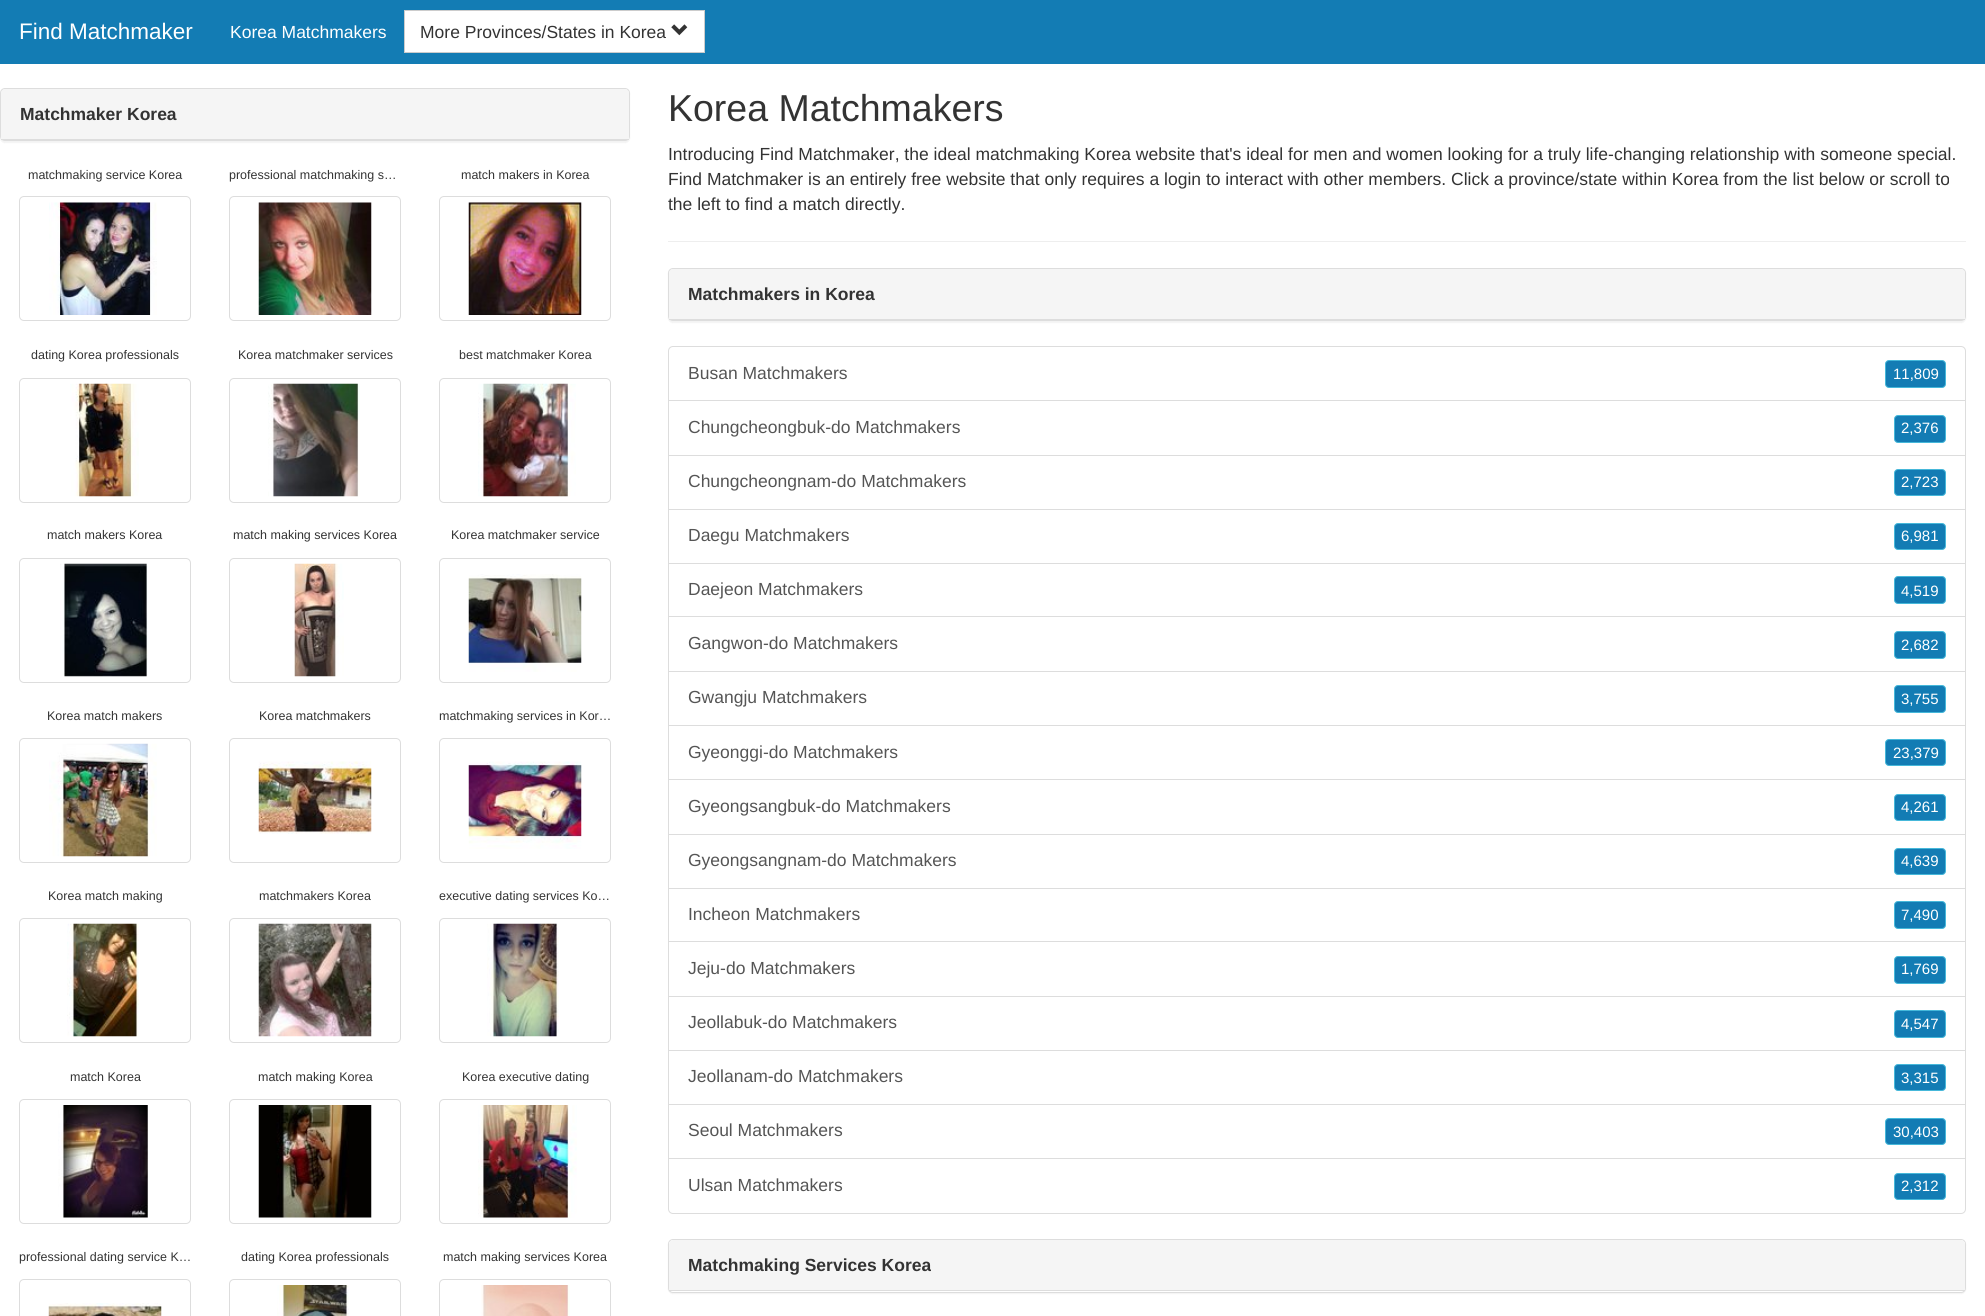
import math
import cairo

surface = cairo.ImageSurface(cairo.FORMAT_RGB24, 1985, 1316)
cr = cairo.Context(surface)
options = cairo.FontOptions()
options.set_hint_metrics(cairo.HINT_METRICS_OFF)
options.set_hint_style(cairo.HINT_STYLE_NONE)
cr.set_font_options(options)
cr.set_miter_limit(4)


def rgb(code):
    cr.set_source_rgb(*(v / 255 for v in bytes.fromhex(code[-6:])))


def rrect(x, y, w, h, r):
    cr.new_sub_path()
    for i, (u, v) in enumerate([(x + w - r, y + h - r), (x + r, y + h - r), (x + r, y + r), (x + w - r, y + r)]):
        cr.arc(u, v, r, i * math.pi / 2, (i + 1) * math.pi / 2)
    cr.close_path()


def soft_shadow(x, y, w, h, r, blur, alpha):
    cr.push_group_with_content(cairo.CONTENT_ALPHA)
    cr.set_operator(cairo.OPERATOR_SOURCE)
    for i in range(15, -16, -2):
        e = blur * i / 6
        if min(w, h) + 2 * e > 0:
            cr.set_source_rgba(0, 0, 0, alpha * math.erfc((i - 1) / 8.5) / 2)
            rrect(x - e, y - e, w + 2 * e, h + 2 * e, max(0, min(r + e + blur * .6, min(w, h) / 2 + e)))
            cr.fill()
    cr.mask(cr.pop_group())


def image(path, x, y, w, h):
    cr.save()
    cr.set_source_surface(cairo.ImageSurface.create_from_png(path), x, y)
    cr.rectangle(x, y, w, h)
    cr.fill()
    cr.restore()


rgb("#ffffff")
cr.paint()
rgb("#137cb4")
cr.rectangle(0, 0, 1985, 64)
cr.fill()
rgb("#ffffff")
cr.rectangle(404.5, 10.5, 300, 42)
cr.fill_preserve()
rgb("#cccccc")
cr.set_line_width(1)
cr.stroke()
image("img/1.png", 671, 24, 17, 12)
rgb("#000000")
soft_shadow(0, 89, 630, 54, 5, 0.5, 0.05)
rrect(0.5, 88.5, 629, 52, 4.5)
rgb("#dddddd")
cr.stroke()
rgb("#f5f5f5")
cr.new_path()
cr.move_to(5, 89)
cr.line_to(625, 89)
cr.curve_to(627, 89, 629, 91, 629, 93)
cr.line_to(629, 140)
cr.line_to(1, 140)
cr.line_to(1, 93)
cr.curve_to(1, 91, 3, 89, 5, 89)
cr.close_path()
cr.fill()
rgb("#dddddd")
cr.rectangle(1, 139, 628, 1)
cr.fill()
rrect(19.5, 196.5, 171, 124, 4.5)
cr.stroke()
image("img/2.png", 49, 202, 108, 113)
rrect(229.5, 196.5, 171, 124, 4.5)
cr.stroke()
image("img/3.png", 258, 202, 114, 113)
rrect(439.5, 196.5, 171, 124, 4.5)
cr.stroke()
image("img/4.png", 468, 202, 114, 113)
rrect(19.5, 378.5, 171, 124, 4.5)
cr.stroke()
image("img/5.png", 70, 383, 69, 114)
rrect(229.5, 378.5, 171, 124, 4.5)
cr.stroke()
image("img/6.png", 268, 383, 92, 114)
rrect(439.5, 378.5, 171, 124, 4.5)
cr.stroke()
image("img/7.png", 478, 383, 98, 114)
rrect(19.5, 558.5, 171, 124, 4.5)
cr.stroke()
image("img/8.png", 60, 563, 88, 114)
rrect(229.5, 558.5, 171, 124, 4.5)
cr.stroke()
image("img/9.png", 294, 563, 50, 114)
rrect(439.5, 558.5, 171, 124, 4.5)
cr.stroke()
image("img/10.png", 468, 574, 114, 98)
rrect(19.5, 738.5, 171, 124, 4.5)
cr.stroke()
image("img/11.png", 49, 743, 108, 114)
rrect(229.5, 738.5, 171, 124, 4.5)
cr.stroke()
image("img/12.png", 258, 761, 114, 73)
rrect(439.5, 738.5, 171, 124, 4.5)
cr.stroke()
image("img/13.png", 468, 761, 114, 88)
rrect(19.5, 918.5, 171, 124, 4.5)
cr.stroke()
image("img/14.png", 67, 923, 72, 114)
rrect(229.5, 918.5, 171, 124, 4.5)
cr.stroke()
image("img/15.png", 258, 923, 114, 114)
rrect(439.5, 918.5, 171, 124, 4.5)
cr.stroke()
image("img/16.png", 487, 923, 72, 114)
rrect(19.5, 1099.5, 171, 124, 4.5)
cr.stroke()
image("img/17.png", 58, 1105, 90, 113)
rrect(229.5, 1099.5, 171, 124, 4.5)
cr.stroke()
image("img/18.png", 258, 1105, 114, 113)
rrect(439.5, 1099.5, 171, 124, 4.5)
cr.stroke()
image("img/19.png", 478, 1105, 99, 113)
rrect(19.5, 1279.5, 171, 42, 4.5)
cr.stroke()
image("img/20.png", 48, 1303, 114, 13)
rrect(229.5, 1279.5, 171, 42, 4.5)
cr.stroke()
image("img/21.png", 277, 1285, 72, 31)
rrect(439.5, 1279.5, 171, 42, 4.5)
cr.stroke()
image("img/22.png", 481, 1285, 89, 31)
rgb("#eeeeee")
cr.rectangle(668, 241, 1298, 1)
cr.fill()
rgb("#000000")
soft_shadow(668, 269, 1298, 54, 5, 0.5, 0.05)
rrect(668.5, 268.5, 1297, 52, 4.5)
rgb("#dddddd")
cr.stroke()
rgb("#f5f5f5")
cr.new_path()
cr.move_to(673, 269)
cr.line_to(1961, 269)
cr.curve_to(1963, 269, 1965, 271, 1965, 273)
cr.line_to(1965, 320)
cr.line_to(669, 320)
cr.line_to(669, 273)
cr.curve_to(669, 271, 671, 269, 673, 269)
cr.close_path()
cr.fill()
rgb("#dddddd")
cr.rectangle(669, 319, 1296, 1)
cr.fill()
cr.new_path()
cr.move_to(673, 346.5)
cr.line_to(1961, 346.5)
cr.curve_to(1963.5, 346.5, 1965.5, 348.5, 1965.5, 351)
cr.line_to(1965.5, 400.5)
cr.line_to(668.5, 400.5)
cr.line_to(668.5, 351)
cr.curve_to(668.5, 348.5, 670.5, 346.5, 673, 346.5)
cr.close_path()
cr.stroke()
rgb("#137cb4")
rrect(1885.5, 360.5, 60, 27, 3.5)
cr.fill_preserve()
rgb("#46b8da")
cr.stroke()
cr.rectangle(668.5, 400.5, 1297, 55)
rgb("#dddddd")
cr.stroke()
rgb("#137cb4")
rrect(1894.5, 415.5, 51, 27, 3.5)
cr.fill_preserve()
rgb("#46b8da")
cr.stroke()
cr.rectangle(668.5, 455.5, 1297, 54)
rgb("#dddddd")
cr.stroke()
rgb("#137cb4")
rrect(1894.5, 469.5, 51, 26, 3.5)
cr.fill_preserve()
rgb("#46b8da")
cr.stroke()
cr.rectangle(668.5, 509.5, 1297, 54)
rgb("#dddddd")
cr.stroke()
rgb("#137cb4")
rrect(1894.5, 523.5, 51, 26, 3.5)
cr.fill_preserve()
rgb("#46b8da")
cr.stroke()
cr.rectangle(668.5, 563.5, 1297, 54)
rgb("#dddddd")
cr.stroke()
rgb("#137cb4")
rrect(1894.5, 576.5, 51, 27, 3.5)
cr.fill_preserve()
rgb("#46b8da")
cr.stroke()
rgb("#ffffff")
cr.rectangle(669, 617, 1296, 1)
cr.fill()
cr.rectangle(668.5, 616.5, 1297, 56)
rgb("#dddddd")
cr.stroke()
rgb("#137cb4")
rrect(1894.5, 631.5, 51, 27, 3.5)
cr.fill_preserve()
rgb("#46b8da")
cr.stroke()
rgb("#ffffff")
cr.rectangle(669, 672, 1296, 1)
cr.fill()
cr.rectangle(668.5, 671.5, 1297, 54)
rgb("#dddddd")
cr.stroke()
rgb("#137cb4")
rrect(1894.5, 685.5, 51, 27, 3.5)
cr.fill_preserve()
rgb("#46b8da")
cr.stroke()
cr.rectangle(668.5, 725.5, 1297, 54)
rgb("#dddddd")
cr.stroke()
rgb("#137cb4")
rrect(1885.5, 739.5, 60, 26, 3.5)
cr.fill_preserve()
rgb("#46b8da")
cr.stroke()
cr.rectangle(668.5, 779.5, 1297, 55)
rgb("#dddddd")
cr.stroke()
rgb("#137cb4")
rrect(1894.5, 794.5, 51, 26, 3.5)
cr.fill_preserve()
rgb("#46b8da")
cr.stroke()
cr.rectangle(668.5, 834.5, 1297, 54)
rgb("#dddddd")
cr.stroke()
rgb("#137cb4")
rrect(1894.5, 848.5, 51, 26, 3.5)
cr.fill_preserve()
rgb("#46b8da")
cr.stroke()
cr.rectangle(668.5, 888.5, 1297, 54)
rgb("#dddddd")
cr.stroke()
rgb("#137cb4")
rrect(1894.5, 901.5, 51, 27, 3.5)
cr.fill_preserve()
rgb("#46b8da")
cr.stroke()
rgb("#ffffff")
cr.rectangle(669, 942, 1296, 1)
cr.fill()
cr.rectangle(668.5, 941.5, 1297, 56)
rgb("#dddddd")
cr.stroke()
rgb("#137cb4")
rrect(1894.5, 956.5, 51, 27, 3.5)
cr.fill_preserve()
rgb("#46b8da")
cr.stroke()
rgb("#ffffff")
cr.rectangle(669, 997, 1296, 1)
cr.fill()
cr.rectangle(668.5, 996.5, 1297, 54)
rgb("#dddddd")
cr.stroke()
rgb("#137cb4")
rrect(1894.5, 1010.5, 51, 27, 3.5)
cr.fill_preserve()
rgb("#46b8da")
cr.stroke()
cr.rectangle(668.5, 1050.5, 1297, 54)
rgb("#dddddd")
cr.stroke()
rgb("#137cb4")
rrect(1894.5, 1064.5, 51, 26, 3.5)
cr.fill_preserve()
rgb("#46b8da")
cr.stroke()
cr.rectangle(668.5, 1104.5, 1297, 54)
rgb("#dddddd")
cr.stroke()
rgb("#137cb4")
rrect(1885.5, 1118.5, 60, 26, 3.5)
cr.fill_preserve()
rgb("#46b8da")
cr.stroke()
rgb("#ffffff")
cr.new_path()
cr.move_to(668.5, 1158.5)
cr.line_to(1965.5, 1158.5)
cr.line_to(1965.5, 1209)
cr.curve_to(1965.5, 1211.5, 1963.5, 1213.5, 1961, 1213.5)
cr.line_to(673, 1213.5)
cr.curve_to(670.5, 1213.5, 668.5, 1211.5, 668.5, 1209)
cr.close_path()
cr.fill_preserve()
rgb("#dddddd")
cr.stroke()
rgb("#137cb4")
rrect(1894.5, 1173.5, 51, 26, 3.5)
cr.fill_preserve()
rgb("#46b8da")
cr.stroke()
rgb("#000000")
soft_shadow(668, 1240, 1298, 54, 5, 0.5, 0.05)
rgb("#ffffff")
rrect(668.5, 1239.5, 1297, 53, 4.5)
cr.fill_preserve()
rgb("#dddddd")
cr.stroke()
rgb("#f5f5f5")
cr.new_path()
cr.move_to(673, 1240)
cr.line_to(1961, 1240)
cr.curve_to(1963, 1240, 1965, 1242, 1965, 1244)
cr.line_to(1965, 1291)
cr.line_to(669, 1291)
cr.line_to(669, 1244)
cr.curve_to(669, 1242, 671, 1240, 673, 1240)
cr.close_path()
cr.fill()
rgb("#dddddd")
cr.rectangle(669, 1290, 1296, 1)
cr.fill()
cr.select_font_face("Liberation Sans")
cr.set_font_size(22.5)
rgb("#ffffff")
cr.move_to(19, 39)
cr.show_text("Find Matchmaker")
cr.set_font_size(17.5)
cr.move_to(230, 38)
cr.show_text("Korea Matchmakers")
rgb("#333333")
cr.move_to(420, 38)
cr.show_text("More Provinces/States in Korea")
cr.select_font_face("Liberation Sans", cairo.FONT_SLANT_NORMAL, cairo.FONT_WEIGHT_BOLD)
cr.move_to(20, 120)
cr.show_text("Matchmaker Korea")
cr.select_font_face("Liberation Sans")
cr.set_font_size(12.5)
for x, y, s in [
    (28, 179, "matchmaking service Korea"),
    (229, 179, "professional matchmaking s…"),
    (461, 179, "match makers in Korea"),
    (31, 359, "dating Korea professionals"),
    (238, 359, "Korea matchmaker services"),
    (459, 359, "best matchmaker Korea"),
    (47, 539, "match makers Korea"),
    (233, 539, "match making services Korea"),
    (451, 539, "Korea matchmaker service"),
    (47, 720, "Korea match makers"),
    (259, 720, "Korea matchmakers"),
    (439, 720, "matchmaking services in Kor…"),
    (48, 900, "Korea match making"),
    (259, 900, "matchmakers Korea"),
    (439, 900, "executive dating services Ko…"),
    (70, 1081, "match Korea"),
    (258, 1081, "match making Korea"),
    (462, 1081, "Korea executive dating"),
    (19, 1261, "professional dating service K…"),
    (241, 1261, "dating Korea professionals"),
    (443, 1261, "match making services Korea"),
]:
    cr.move_to(x, y)
    cr.show_text(s)
cr.set_font_size(37.5)
cr.move_to(668, 121)
cr.show_text("Korea Matchmakers")
cr.set_font_size(17.5)
for x, y, s in [
    (668, 160, "Introducing Find Matchmaker, the ideal matchmaking Korea website that's ideal for men and women looking for a truly life-changing relationship with someone special."),
    (668, 185, "Find Matchmaker is an entirely free website that only requires a login to interact with other members. Click a province/state within Korea from the list below or scroll to"),
    (668, 210, "the left to find a match directly."),
]:
    cr.move_to(x, y)
    cr.show_text(s)
cr.select_font_face("Liberation Sans", cairo.FONT_SLANT_NORMAL, cairo.FONT_WEIGHT_BOLD)
cr.move_to(688, 300)
cr.show_text("Matchmakers in Korea")
cr.select_font_face("Liberation Sans")
rgb("#555555")
cr.move_to(688, 379)
cr.show_text("Busan Matchmakers")
cr.set_font_size(15)
rgb("#ffffff")
cr.move_to(1893, 379)
cr.show_text("11,809")
cr.set_font_size(17.5)
rgb("#555555")
cr.move_to(688, 433)
cr.show_text("Chungcheongbuk-do Matchmakers")
cr.set_font_size(15)
rgb("#ffffff")
cr.move_to(1901, 433)
cr.show_text("2,376")
cr.set_font_size(17.5)
rgb("#555555")
cr.move_to(688, 487)
cr.show_text("Chungcheongnam-do Matchmakers")
cr.set_font_size(15)
rgb("#ffffff")
cr.move_to(1901, 487)
cr.show_text("2,723")
cr.set_font_size(17.5)
rgb("#555555")
cr.move_to(688, 541)
cr.show_text("Daegu Matchmakers")
cr.set_font_size(15)
rgb("#ffffff")
cr.move_to(1901, 541)
cr.show_text("6,981")
cr.set_font_size(17.5)
rgb("#555555")
cr.move_to(688, 595)
cr.show_text("Daejeon Matchmakers")
cr.set_font_size(15)
rgb("#ffffff")
cr.move_to(1901, 596)
cr.show_text("4,519")
cr.set_font_size(17.5)
rgb("#555555")
cr.move_to(688, 649)
cr.show_text("Gangwon-do Matchmakers")
cr.set_font_size(15)
rgb("#ffffff")
cr.move_to(1901, 650)
cr.show_text("2,682")
cr.set_font_size(17.5)
rgb("#555555")
cr.move_to(688, 703)
cr.show_text("Gwangju Matchmakers")
cr.set_font_size(15)
rgb("#ffffff")
cr.move_to(1901, 704)
cr.show_text("3,755")
cr.set_font_size(17.5)
rgb("#555555")
cr.move_to(688, 758)
cr.show_text("Gyeonggi-do Matchmakers")
cr.set_font_size(15)
rgb("#ffffff")
cr.move_to(1893, 758)
cr.show_text("23,379")
cr.set_font_size(17.5)
rgb("#555555")
cr.move_to(688, 812)
cr.show_text("Gyeongsangbuk-do Matchmakers")
cr.set_font_size(15)
rgb("#ffffff")
cr.move_to(1901, 812)
cr.show_text("4,261")
cr.set_font_size(17.5)
rgb("#555555")
cr.move_to(688, 866)
cr.show_text("Gyeongsangnam-do Matchmakers")
cr.set_font_size(15)
rgb("#ffffff")
cr.move_to(1901, 866)
cr.show_text("4,639")
cr.set_font_size(17.5)
rgb("#555555")
cr.move_to(688, 920)
cr.show_text("Incheon Matchmakers")
cr.set_font_size(15)
rgb("#ffffff")
cr.move_to(1901, 920)
cr.show_text("7,490")
cr.set_font_size(17.5)
rgb("#555555")
cr.move_to(688, 974)
cr.show_text("Jeju-do Matchmakers")
cr.set_font_size(15)
rgb("#ffffff")
cr.move_to(1901, 974)
cr.show_text("1,769")
cr.set_font_size(17.5)
rgb("#555555")
cr.move_to(688, 1028)
cr.show_text("Jeollabuk-do Matchmakers")
cr.set_font_size(15)
rgb("#ffffff")
cr.move_to(1901, 1029)
cr.show_text("4,547")
cr.set_font_size(17.5)
rgb("#555555")
cr.move_to(688, 1082)
cr.show_text("Jeollanam-do Matchmakers")
cr.set_font_size(15)
rgb("#ffffff")
cr.move_to(1901, 1083)
cr.show_text("3,315")
cr.set_font_size(17.5)
rgb("#555555")
cr.move_to(688, 1136)
cr.show_text("Seoul Matchmakers")
cr.set_font_size(15)
rgb("#ffffff")
cr.move_to(1893, 1137)
cr.show_text("30,403")
cr.set_font_size(17.5)
rgb("#555555")
cr.move_to(688, 1191)
cr.show_text("Ulsan Matchmakers")
cr.set_font_size(15)
rgb("#ffffff")
cr.move_to(1901, 1191)
cr.show_text("2,312")
cr.select_font_face("Liberation Sans", cairo.FONT_SLANT_NORMAL, cairo.FONT_WEIGHT_BOLD)
cr.set_font_size(17.5)
rgb("#333333")
cr.move_to(688, 1271)
cr.show_text("Matchmaking Services Korea")
surface.write_to_png("page.png")
